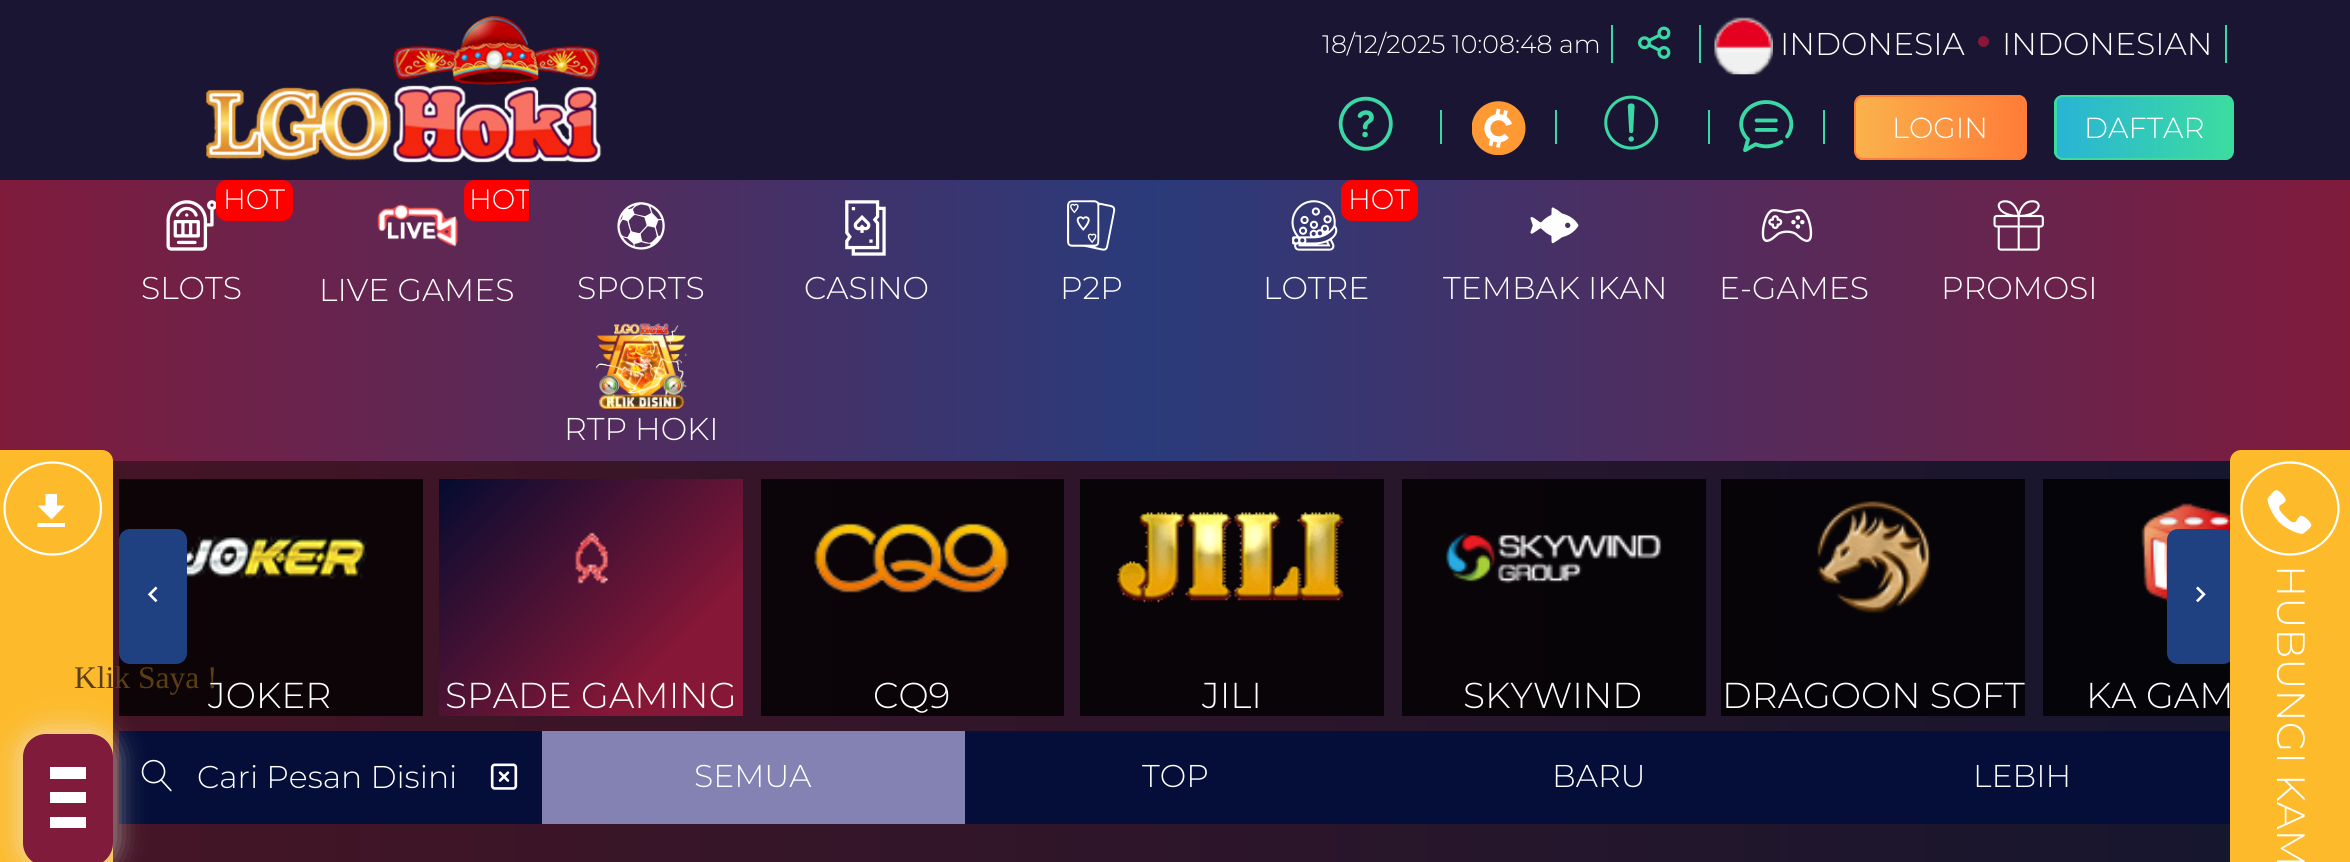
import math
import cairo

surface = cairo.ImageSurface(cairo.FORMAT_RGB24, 2350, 862)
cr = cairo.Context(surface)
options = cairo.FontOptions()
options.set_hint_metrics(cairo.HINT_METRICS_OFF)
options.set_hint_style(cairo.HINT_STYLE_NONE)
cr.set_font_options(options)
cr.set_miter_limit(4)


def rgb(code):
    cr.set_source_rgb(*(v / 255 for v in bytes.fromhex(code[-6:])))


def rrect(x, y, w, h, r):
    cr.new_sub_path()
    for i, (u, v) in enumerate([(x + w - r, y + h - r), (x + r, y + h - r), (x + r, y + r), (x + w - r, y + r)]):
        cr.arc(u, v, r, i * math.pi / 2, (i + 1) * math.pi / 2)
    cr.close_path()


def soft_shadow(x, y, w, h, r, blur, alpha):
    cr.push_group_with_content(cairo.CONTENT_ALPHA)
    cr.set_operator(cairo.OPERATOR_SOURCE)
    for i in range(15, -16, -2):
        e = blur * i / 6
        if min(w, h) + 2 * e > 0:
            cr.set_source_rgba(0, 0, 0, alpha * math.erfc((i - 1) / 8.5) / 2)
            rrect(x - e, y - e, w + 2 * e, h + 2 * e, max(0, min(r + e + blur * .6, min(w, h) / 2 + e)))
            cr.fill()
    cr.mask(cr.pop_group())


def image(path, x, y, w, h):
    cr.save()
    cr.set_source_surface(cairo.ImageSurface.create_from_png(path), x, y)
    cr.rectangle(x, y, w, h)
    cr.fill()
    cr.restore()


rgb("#ffffff")
cr.paint()
gradient = cairo.LinearGradient(0, 432, 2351, 432)
gradient.add_color_stop_rgba(0, 0.278, 0.082, 0.145, 1)
gradient.add_color_stop_rgba(1, 0.075, 0.086, 0.184, 1)
cr.set_source(gradient)
cr.rectangle(113, 461, 2117, 401)
cr.fill()
gradient = cairo.LinearGradient(0, 432, 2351, 432)
gradient.add_color_stop_rgba(0, 0.055, 0.016, 0.027, 1)
gradient.add_color_stop_rgba(1, 0.016, 0.016, 0.035, 1)
cr.set_source(gradient)
cr.rectangle(2043, 479, 187, 237)
cr.fill()
cr.rectangle(1721, 479, 304, 237)
cr.fill()
cr.rectangle(1402, 479, 304, 237)
cr.fill()
cr.rectangle(1080, 479, 304, 237)
cr.fill()
cr.rectangle(761, 479, 303, 237)
cr.fill()
cr.rectangle(119, 479, 304, 237)
cr.fill()
rgb("#1a1532")
cr.rectangle(0, 0, 2350, 180)
cr.fill()
image("img/1.png", 206, 16, 396, 147)
rgb("#3ad8a5")
cr.rectangle(1611, 25, 2, 38)
cr.fill()
image("img/2.png", 1638, 26, 33, 33)
cr.rectangle(1699, 25, 2, 38)
cr.fill()
image("img/3.png", 1714, 17, 59, 58)
rgb("#871737")
cr.arc(1983.5, 41.5, 5.5, 0, 2 * math.pi)
cr.fill()
rgb("#3ad8a5")
cr.rectangle(2225, 25, 2, 38)
cr.fill()
image("img/4.png", 1338, 96, 55, 55)
cr.rectangle(1440, 110, 2, 34)
cr.fill()
image("img/5.png", 1472, 101, 54, 54)
cr.rectangle(1555, 110, 2, 34)
cr.fill()
image("img/6.png", 1604, 95, 55, 55)
cr.rectangle(1708, 110, 2, 34)
cr.fill()
image("img/7.png", 1739, 100, 55, 53)
cr.rectangle(1823, 110, 2, 34)
cr.fill()
cr.save()
rrect(1854, 95, 173, 65, 9)
cr.clip()
gradient = cairo.LinearGradient(1856, 127, 2025, 127)
gradient.add_color_stop_rgba(0, 0.984, 0.698, 0.298, 1)
gradient.add_color_stop_rgba(0.98, 0.996, 0.49, 0.22, 1)
cr.set_source(gradient)
cr.rectangle(1856, 95, 169, 65)
cr.fill()
cr.restore()
rrect(1855, 96, 171, 63, 8)
rgb("#fe7d38")
cr.stroke()
cr.save()
rrect(2054, 95, 180, 65, 9)
cr.clip()
gradient = cairo.LinearGradient(1881, 127, 2057, 127)
gradient.add_color_stop_rgba(0, 0.161, 0.706, 0.835, 1)
gradient.add_color_stop_rgba(1, 0.235, 0.863, 0.627, 1)
cr.set_source(gradient)
cr.rectangle(2054, 95, 3, 65)
cr.fill()
gradient = cairo.LinearGradient(2057, 127, 2232, 127)
gradient.add_color_stop_rgba(0, 0.161, 0.706, 0.835, 1)
gradient.add_color_stop_rgba(1, 0.235, 0.863, 0.627, 1)
cr.set_source(gradient)
cr.rectangle(2057, 95, 175, 65)
cr.fill()
cr.restore()
rrect(2055, 96, 178, 63, 8)
rgb("#3cdca0")
cr.stroke()
gradient = cairo.LinearGradient(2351, 321, 0, 321)
gradient.add_color_stop_rgba(0, 0.502, 0.106, 0.235, 1)
gradient.add_color_stop_rgba(0.51, 0.165, 0.231, 0.482, 1)
gradient.add_color_stop_rgba(1, 0.502, 0.106, 0.235, 1)
cr.set_source(gradient)
cr.rectangle(0, 180, 2350, 281)
cr.fill()
image("img/8.png", 166, 200, 50, 51)
rgb("#ff0000")
rrect(216, 180, 77, 41, 11)
cr.fill()
cr.save()
cr.rectangle(304, 180, 225, 142)
cr.clip()
rrect(464, 180, 74, 41, 11)
cr.fill()
cr.restore()
image("img/9.png", 377, 204, 81, 43)
image("img/10.png", 617, 202, 48, 48)
image("img/11.png", 845, 200, 41, 56)
image("img/12.png", 1067, 200, 49, 51)
image("img/13.png", 1291, 200, 47, 51)
rrect(1341, 180, 77, 41, 11)
cr.fill()
image("img/14.png", 1530, 207, 49, 37)
image("img/15.png", 1761, 209, 52, 33)
image("img/16.png", 1993, 200, 51, 51)
image("img/17.png", 596, 323, 91, 86)
rgb("#fdbb2c")
cr.new_path()
cr.move_to(-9, 450)
cr.line_to(102, 450)
cr.curve_to(108, 450, 113, 455, 113, 461)
cr.line_to(113, 862)
cr.curve_to(113, 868, 108, 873, 102, 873)
cr.line_to(-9, 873)
cr.close_path()
cr.fill()
cr.new_path()
cr.move_to(52.5, 462.5)
cr.curve_to(79.5, 462.5, 101, 483, 101, 508.5)
cr.curve_to(101, 534, 79.5, 554.5, 52.5, 554.5)
cr.curve_to(26, 554.5, 4.5, 534, 4.5, 508.5)
cr.curve_to(4.5, 483, 26, 462.5, 52.5, 462.5)
cr.close_path()
rgb("#ffffff")
cr.set_line_width(2.2)
cr.stroke()
cr.new_path()
cr.move_to(37.5, 523)
cr.line_to(65, 523)
cr.line_to(65, 527)
cr.line_to(37.5, 527)
cr.close_path()
cr.move_to(65, 505.5)
cr.line_to(51.5, 519.5)
cr.line_to(37.5, 505.5)
cr.line_to(45.5, 505.5)
cr.line_to(45.5, 494)
cr.line_to(57, 494)
cr.line_to(57, 505.5)
cr.close_path()
cr.fill()
rgb("#040e38")
cr.rectangle(119, 731, 2111, 93)
cr.fill()
image("img/27.png", 141, 759, 31, 33)
rgb("#e9e4de")
soft_shadow(20, 731, 95, 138, 25, 13.5, 0.7)
rgb("#801b3c")
rrect(23, 734, 90, 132, 23)
cr.fill()
for x, y, w, h, color in [
    (50, 767, 36, 12, "#ffffff"),
    (50, 792, 36, 11, "#ffffff"),
    (50, 817, 36, 11, "#ffffff"),
]:
    rgb(color)
    cr.rectangle(x, y, w, h)
    cr.fill()
rgb("#1f4181")
rrect(119, 529, 68, 135, 11)
cr.fill()
image("img/18.png", 147, 586, 11, 17)
image("img/26.png", 2141, 503, 89, 99)
rrect(2167, 529, 67, 135, 11)
cr.fill()
image("img/19.png", 2196, 586, 10, 17)
image("img/20.png", 187, 534, 180, 45)
gradient = cairo.LinearGradient(456, 462, 726, 732)
gradient.add_color_stop_rgba(0, 0.012, 0.043, 0.188, 1)
gradient.add_color_stop_rgba(0.76, 0.529, 0.09, 0.216, 1)
cr.set_source(gradient)
cr.rectangle(439, 479, 304, 237)
cr.fill()
image("img/21.png", 575, 532, 34, 52)
image("img/22.png", 814, 523, 195, 70)
image("img/23.png", 1116, 512, 228, 91)
image("img/24.png", 1446, 532, 216, 52)
image("img/25.png", 1817, 501, 114, 113)
image("img/28.png", 490, 763, 28, 27)
rgb("#8382b3")
cr.rectangle(542, 731, 423, 93)
cr.fill()
rgb("#fdbb2c")
cr.new_path()
cr.move_to(2241, 450)
cr.line_to(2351, 450)
cr.line_to(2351, 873)
cr.line_to(2241, 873)
cr.curve_to(2235, 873, 2230, 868, 2230, 862)
cr.line_to(2230, 461)
cr.curve_to(2230, 455, 2235, 450, 2241, 450)
cr.close_path()
cr.fill()
cr.new_path()
cr.move_to(2290, 462.5)
cr.curve_to(2316.5, 462.5, 2338.5, 483, 2338.5, 508.5)
cr.curve_to(2338.5, 534, 2316.5, 554.5, 2290, 554.5)
cr.curve_to(2263.5, 554.5, 2241.5, 534, 2241.5, 508.5)
cr.curve_to(2241.5, 483, 2263.5, 462.5, 2290, 462.5)
cr.close_path()
rgb("#ffffff")
cr.stroke()
image("img/29.png", 2267, 490, 45, 44)
cr.select_font_face("Montserrat Light")
cr.set_font_size(25.25)
cr.move_to(1322, 53)
cr.show_text("18/12/2025 10:08:48 am")
cr.set_font_size(31.5)
cr.move_to(1780, 55)
cr.show_text("INDONESIA")
cr.move_to(2002, 55)
cr.show_text("INDONESIAN")
cr.set_font_size(29)
cr.move_to(1892, 138)
cr.show_text("LOGIN")
cr.move_to(2084, 138)
cr.show_text("DAFTAR")
cr.set_font_size(28)
cr.move_to(223, 209)
cr.show_text("HOT")
cr.set_font_size(31.5)
cr.move_to(141, 299)
cr.show_text("SLOTS")
cr.save()
cr.rectangle(304, 180, 225, 142)
cr.clip()
cr.set_font_size(28)
cr.move_to(469, 209)
cr.show_text("HOT")
cr.restore()
for x, y, s in [
    (319, 301, "LIVE GAMES"),
    (577, 299, "SPORTS"),
    (804, 299, "CASINO"),
    (1060, 299, "P2P"),
]:
    cr.move_to(x, y)
    cr.show_text(s)
cr.set_font_size(28)
cr.move_to(1348, 209)
cr.show_text("HOT")
cr.set_font_size(31.5)
for x, y, s in [
    (1263, 299, "LOTRE"),
    (1443, 299, "TEMBAK IKAN"),
    (1719, 299, "E-GAMES"),
    (1941, 299, "PROMOSI"),
    (564, 440, "RTP HOKI"),
]:
    cr.move_to(x, y)
    cr.show_text(s)
cr.set_font_size(36)
cr.move_to(208, 708)
cr.show_text("JOKER")
cr.select_font_face("Liberation Serif")
cr.set_font_size(31.5)
rgb("#5b3e15")
cr.move_to(74, 688)
cr.show_text("Klik Saya !")
cr.select_font_face("Montserrat Light")
cr.set_font_size(36)
rgb("#ffffff")
for x, y, s in [
    (445, 708, "SPADE GAMING"),
    (873, 708, "CQ9"),
    (1202, 708, "JILI"),
    (1463, 708, "SKYWIND"),
    (1722, 708, "DRAGOON SOFT"),
    (2086, 708, "KA GAM"),
]:
    cr.move_to(x, y)
    cr.show_text(s)
cr.set_font_size(31.5)
for x, y, s in [
    (197, 788, "Cari Pesan Disini"),
    (694, 787, "SEMUA"),
    (1142, 787, "TOP"),
    (1552, 787, "BARU"),
    (1973, 787, "LEBIH"),
]:
    cr.move_to(x, y)
    cr.show_text(s)
cr.set_font_size(39.5)
cr.save()
cr.translate(2277, 565)
cr.rotate(90 * math.pi / 180)
cr.move_to(0, 0)
cr.show_text("HUBUNGI KAMI")
cr.restore()
surface.write_to_png("page.png")
